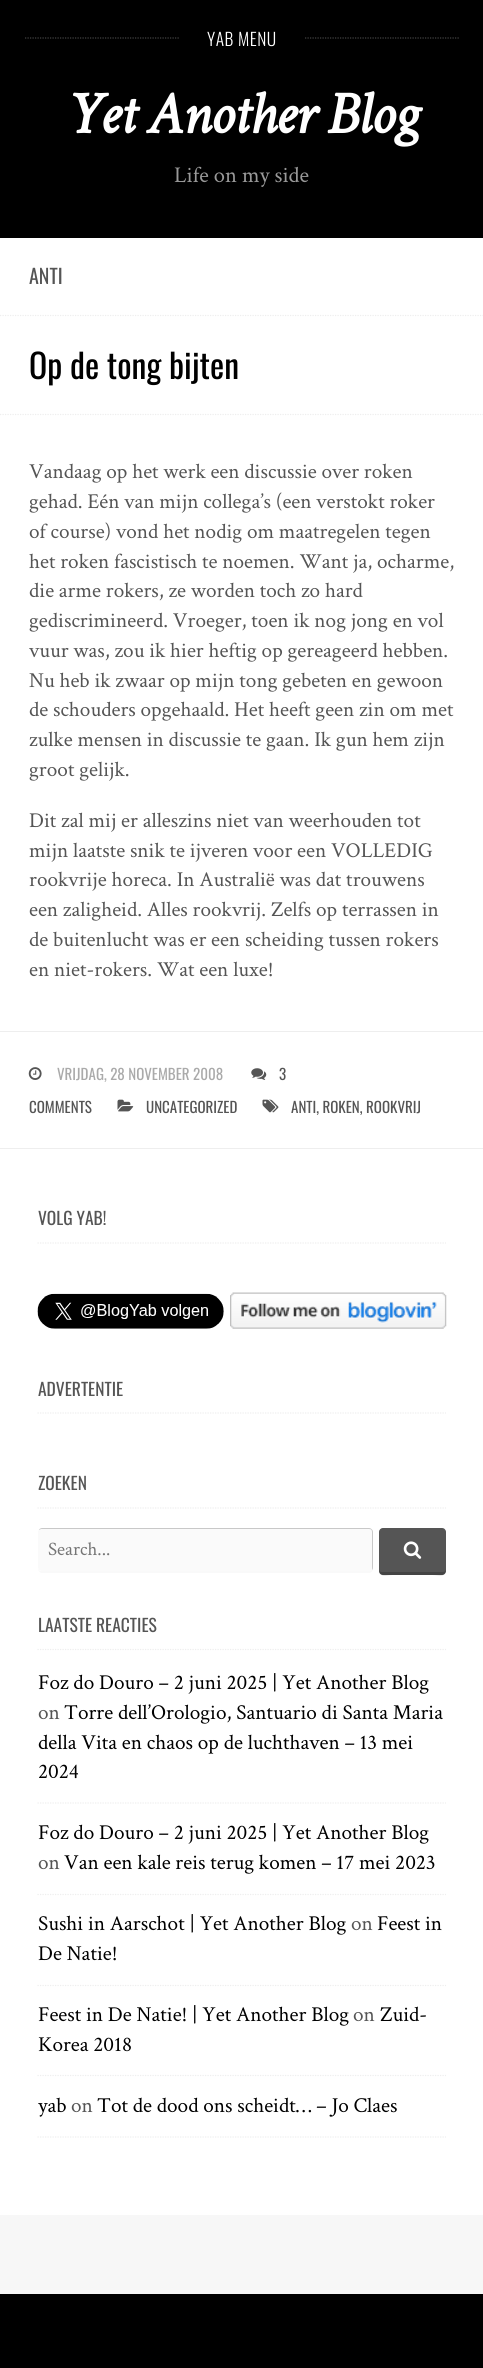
import math
import cairo

surface = cairo.ImageSurface(cairo.FORMAT_RGB24, 483, 2368)
cr = cairo.Context(surface)
options = cairo.FontOptions()
options.set_hint_metrics(cairo.HINT_METRICS_OFF)
options.set_hint_style(cairo.HINT_STYLE_NONE)
cr.set_font_options(options)
cr.set_miter_limit(4)


def rgb(code):
    cr.set_source_rgb(*(v / 255 for v in bytes.fromhex(code[-6:])))


def tracked(x, y, s, letter, word):
    cr.move_to(x, y)
    for ch in s:
        cr.show_text(ch)
        cr.rel_move_to(letter + word * (ch == ' '), 0)


def rrect(x, y, w, h, r):
    cr.new_sub_path()
    for i, (u, v) in enumerate([(x + w - r, y + h - r), (x + r, y + h - r), (x + r, y + r), (x + w - r, y + r)]):
        cr.arc(u, v, r, i * math.pi / 2, (i + 1) * math.pi / 2)
    cr.close_path()


def image(path, x, y, w, h):
    cr.save()
    cr.set_source_surface(cairo.ImageSurface.create_from_png(path), x, y)
    cr.rectangle(x, y, w, h)
    cr.fill()
    cr.restore()


rgb("#f7f7f7")
cr.paint()
rgb("#000000")
cr.rectangle(0, 0, 483, 238)
cr.fill()
cr.new_path()
cr.move_to(25, 38)
cr.line_to(459, 38)
rgb("#444444")
cr.set_line_width(1.2)
cr.set_dash([1.25, 1.25])
cr.stroke()
rgb("#000000")
cr.rectangle(180, 37, 124, 2)
cr.fill()
rgb("#ffffff")
cr.rectangle(0, 238, 483, 1977)
cr.fill()
cr.new_path()
cr.move_to(0, 315.5)
cr.line_to(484, 315.5)
rgb("#eeeeee")
cr.stroke()
cr.new_path()
cr.move_to(0, 414.5)
cr.line_to(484, 414.5)
cr.stroke()
cr.rectangle(0, 1031, 483, 1)
cr.fill()
cr.rectangle(0, 1148, 483, 1)
cr.fill()
image("img/1.png", 28, 1067, 14, 13)
image("img/2.png", 251, 1068, 16, 12)
image("img/3.png", 117, 1099, 17, 13)
image("img/4.png", 262, 1099, 17, 14)
cr.new_path()
cr.move_to(37.5, 1243)
cr.line_to(446, 1243)
cr.stroke()
image("img/5.png", 37, 1293, 187, 36)
image("img/6.png", 230, 1292, 217, 37)
cr.new_path()
cr.move_to(37.5, 1413)
cr.line_to(446, 1413)
cr.stroke()
cr.new_path()
cr.move_to(37.5, 1508)
cr.line_to(446, 1508)
cr.stroke()
rgb("#f9f9f9")
cr.new_path()
cr.move_to(38, 1569)
cr.curve_to(38, 1571, 40, 1573, 42, 1573)
cr.line_to(369, 1573)
cr.curve_to(371, 1573, 373, 1571, 373, 1569)
cr.line_to(373, 1533)
cr.line_to(372, 1531)
cr.line_to(372, 1568)
cr.curve_to(372, 1570, 371, 1571, 369, 1571)
cr.line_to(41, 1571)
cr.curve_to(40, 1571, 39, 1571, 38, 1569)
cr.close_path()
cr.fill()
rgb("#fafafa")
rrect(38, 1528, 335, 43, 4)
cr.fill()
rgb("#c8c8c8")
cr.new_path()
cr.move_to(41, 1529)
cr.line_to(369, 1529)
cr.curve_to(371, 1529, 372, 1530, 372, 1532)
cr.line_to(372, 1570)
cr.curve_to(373, 1569, 373, 1568, 373, 1567)
cr.line_to(373, 1532)
cr.curve_to(373, 1530, 371, 1528, 369, 1528)
cr.line_to(42, 1528)
cr.curve_to(41, 1528, 39, 1529, 39, 1530)
cr.close_path()
cr.fill()
rgb("#555555")
rrect(379, 1528, 67, 47, 4)
cr.fill()
cr.set_source_rgba(0, 0, 0, 0.2)
cr.new_path()
cr.move_to(379, 1569)
cr.curve_to(379, 1578, 385, 1575, 393, 1575)
cr.line_to(432, 1575)
cr.curve_to(440, 1575, 446, 1578, 446, 1569)
cr.curve_to(446, 1571, 445, 1572, 442, 1572)
cr.line_to(382, 1572)
cr.curve_to(380, 1572, 379, 1571, 379, 1569)
cr.close_path()
cr.fill()
image("img/7.png", 403, 1541, 19, 18)
cr.new_path()
cr.move_to(37.5, 1649.5)
cr.line_to(446, 1649.5)
rgb("#eeeeee")
cr.stroke()
cr.new_path()
cr.move_to(37.5, 1803)
cr.line_to(446, 1803)
cr.stroke()
cr.new_path()
cr.move_to(37.5, 1894.5)
cr.line_to(446, 1894.5)
cr.stroke()
cr.new_path()
cr.move_to(37.5, 1985.5)
cr.line_to(446, 1985.5)
cr.stroke()
cr.new_path()
cr.move_to(37.5, 2075.5)
cr.line_to(446, 2075.5)
cr.stroke()
cr.new_path()
cr.move_to(37.5, 2137)
cr.line_to(446, 2137)
cr.stroke()
rgb("#000000")
cr.rectangle(0, 2294, 483, 74)
cr.fill()
cr.select_font_face("Oswald Light")
cr.set_font_size(17.5)
rgb("#ffffff")
tracked(207, 46, "YAB MENU", 0.5, 0)
cr.select_font_face("Crimson Text", cairo.FONT_SLANT_ITALIC, cairo.FONT_WEIGHT_BOLD)
cr.set_font_size(60)
tracked(66, 133, "Yet Another Blog", -1.25, 0)
cr.select_font_face("Crimson Text")
cr.set_font_size(22.5)
rgb("#999999")
cr.move_to(174, 182)
cr.show_text("Life on my side")
cr.select_font_face("Oswald")
cr.set_font_size(20)
rgb("#555555")
cr.move_to(29, 284)
cr.show_text("ANTI")
cr.set_font_size(33.75)
rgb("#000000")
cr.move_to(29, 379)
cr.show_text("Op de tong bijten")
cr.select_font_face("Crimson Text")
cr.set_font_size(21.25)
rgb("#555555")
for x, y, s in [
    (29, 478, "Vandaag op het werk een discussie over roken"),
    (29, 508, "gehad. Eén van mijn collega’s (een verstokt roker"),
    (29, 538, "of course) vond het nodig om maatregelen tegen"),
    (29, 568, "het roken fascistisch te noemen. Want ja, ocharme,"),
    (29, 597, "die arme rokers, ze worden toch zo hard"),
    (29, 627, "gediscrimineerd. Vroeger, toen ik nog jong en vol"),
    (29, 657, "vuur was, zou ik hier heftig op gereageerd hebben."),
    (29, 687, "Nu heb ik zwaar op mijn tong gebeten en gewoon"),
    (29, 716, "de schouders opgehaald. Het heeft geen zin om met"),
    (29, 746, "zulke mensen in discussie te gaan. Ik gun hem zijn"),
    (29, 776, "groot gelijk."),
    (29, 827, "Dit zal mij er alleszins niet van weerhouden tot"),
    (29, 857, "mijn laatste snik te ijveren voor een VOLLEDIG"),
    (29, 886, "rookvrije horeca. In Australië was dat trouwens"),
    (29, 916, "een zaligheid. Alles rookvrij. Zelfs op terrassen in"),
    (29, 946, "de buitenlucht was er een scheiding tussen rokers"),
    (29, 976, "en niet-rokers. Wat een luxe!"),
]:
    cr.move_to(x, y)
    cr.show_text(s)
cr.select_font_face("Oswald")
cr.set_font_size(15)
rgb("#aaaaaa")
cr.move_to(57, 1080)
cr.show_text("VRIJDAG, 28 NOVEMBER 2008")
rgb("#555555")
for x, y, s in [
    (279, 1080, "3"),
    (29, 1113, "COMMENTS"),
    (146, 1113, "UNCATEGORIZED"),
    (291, 1113, "ANTI, ROKEN, ROOKVRIJ"),
]:
    cr.move_to(x, y)
    cr.show_text(s)
cr.set_font_size(17.5)
for x, y, s in [
    (38, 1225, "VOLG YAB!"),
    (38, 1396, "ADVERTENTIE"),
    (38, 1490, "ZOEKEN"),
]:
    cr.move_to(x, y)
    cr.show_text(s)
cr.select_font_face("Crimson Text")
cr.set_font_size(19)
rgb("#757575")
cr.move_to(48, 1555)
cr.show_text("Search...")
cr.select_font_face("Oswald")
cr.set_font_size(17.5)
rgb("#555555")
cr.move_to(38, 1632)
cr.show_text("LAATSTE REACTIES")
cr.select_font_face("Crimson Text")
cr.set_font_size(21.25)
rgb("#000000")
cr.move_to(38, 1689)
cr.show_text("Foz do Douro – 2 juni 2025 | Yet Another Blog")
rgb("#555555")
cr.move_to(38, 1719)
cr.show_text("on")
rgb("#000000")
for x, y, s in [
    (64, 1719, "Torre dell’Orologio, Santuario di Santa Maria"),
    (38, 1749, "della Vita en chaos op de luchthaven – 13 mei"),
    (38, 1778, "2024"),
    (38, 1839, "Foz do Douro – 2 juni 2025 | Yet Another Blog"),
]:
    cr.move_to(x, y)
    cr.show_text(s)
rgb("#555555")
cr.move_to(38, 1869)
cr.show_text("on")
rgb("#000000")
cr.move_to(64, 1869)
cr.show_text("Van een kale reis terug komen – 17 mei 2023")
cr.move_to(38, 1930)
cr.show_text("Sushi in Aarschot | Yet Another Blog")
rgb("#555555")
cr.move_to(351, 1930)
cr.show_text("on")
rgb("#000000")
for x, y, s in [
    (377, 1930, "Feest in"),
    (38, 1960, "De Natie!"),
    (38, 2021, "Feest in De Natie! | Yet Another Blog"),
]:
    cr.move_to(x, y)
    cr.show_text(s)
rgb("#555555")
cr.move_to(353, 2021)
cr.show_text("on")
rgb("#000000")
for x, y, s in [
    (380, 2021, "Zuid-"),
    (38, 2051, "Korea 2018"),
    (38, 2112, "yab"),
]:
    cr.move_to(x, y)
    cr.show_text(s)
rgb("#555555")
cr.move_to(71, 2112)
cr.show_text("on")
rgb("#000000")
cr.move_to(97, 2112)
cr.show_text("Tot de dood ons scheidt… – Jo Claes")
surface.write_to_png("page.png")
